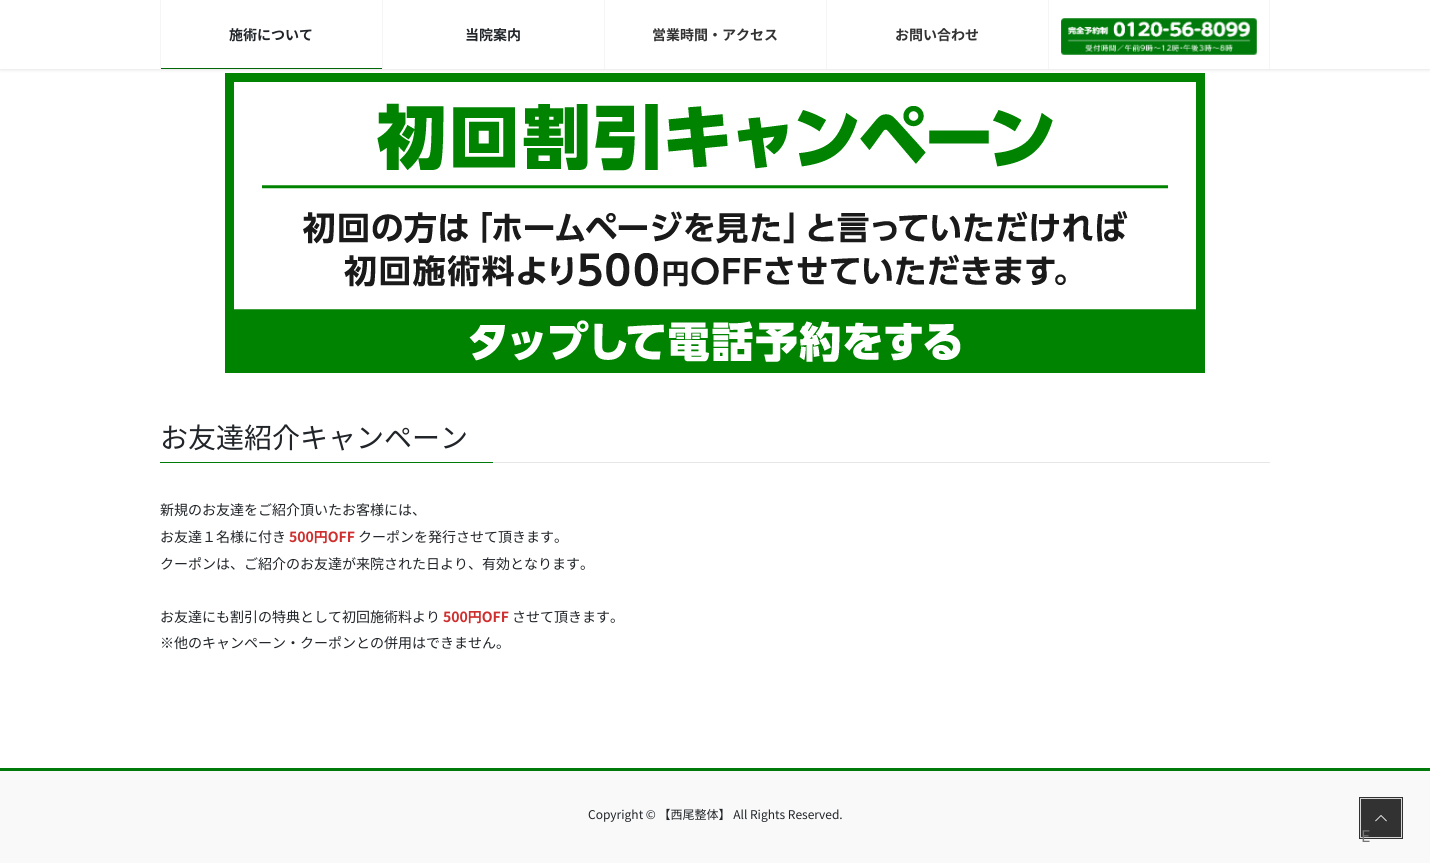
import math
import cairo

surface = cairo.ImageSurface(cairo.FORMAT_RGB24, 1430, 863)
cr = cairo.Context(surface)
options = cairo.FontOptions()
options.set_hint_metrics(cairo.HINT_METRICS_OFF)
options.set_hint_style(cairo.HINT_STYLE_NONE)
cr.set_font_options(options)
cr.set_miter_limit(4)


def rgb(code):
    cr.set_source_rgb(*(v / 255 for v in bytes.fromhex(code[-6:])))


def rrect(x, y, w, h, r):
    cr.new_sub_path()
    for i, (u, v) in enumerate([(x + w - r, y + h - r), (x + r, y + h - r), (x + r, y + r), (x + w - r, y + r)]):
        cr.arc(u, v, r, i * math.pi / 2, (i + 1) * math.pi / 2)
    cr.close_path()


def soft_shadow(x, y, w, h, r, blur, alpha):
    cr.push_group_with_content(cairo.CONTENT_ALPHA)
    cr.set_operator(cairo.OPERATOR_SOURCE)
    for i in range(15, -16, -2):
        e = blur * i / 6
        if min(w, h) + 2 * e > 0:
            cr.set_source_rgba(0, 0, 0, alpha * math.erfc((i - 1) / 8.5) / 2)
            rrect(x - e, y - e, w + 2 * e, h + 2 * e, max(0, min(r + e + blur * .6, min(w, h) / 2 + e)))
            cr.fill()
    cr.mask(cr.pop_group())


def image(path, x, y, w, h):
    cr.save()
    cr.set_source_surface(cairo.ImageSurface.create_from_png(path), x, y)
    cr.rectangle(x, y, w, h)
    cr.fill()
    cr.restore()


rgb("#ffffff")
cr.paint()
image("img/2.png", 225, 73, 980, 300)
rgb("#000000")
soft_shadow(0, 1, 1430, 69, 0, 1.5, 0.1)
for x, y, w, h, color in [
    (0, 0, 1430, 69, "#ffffff"),
    (160, 0, 1, 69, "#f5f5f5"),
    (161, 68, 221, 1, "#006809"),
    (382, 0, 1, 69, "#f5f5f5"),
    (604, 0, 1, 69, "#f5f5f5"),
    (826, 0, 1, 69, "#f5f5f5"),
    (1269, 0, 1, 69, "#f5f5f5"),
    (1048, 0, 1, 69, "#f5f5f5"),
]:
    rgb(color)
    cr.rectangle(x, y, w, h)
    cr.fill()
image("img/1.png", 1061, 18, 196, 37)
for x, y, w, h, color in [
    (493, 462, 777, 1, "#e6e6e6"),
    (160, 462, 333, 1, "#007a0a"),
    (0, 771, 1430, 92, "#f9f9f9"),
    (0, 768, 1430, 3, "#007a0a"),
]:
    rgb(color)
    cr.rectangle(x, y, w, h)
    cr.fill()
cr.rectangle(1360, 798, 42, 40)
rgb("#323232")
cr.stroke()
cr.rectangle(1360.5, 798.5, 41, 39)
rgb("#d6d6d6")
cr.set_line_width(1)
cr.stroke()
rgb("#323232")
cr.rectangle(1361, 799, 40, 38)
cr.fill()
image("img/3.png", 1375, 815, 12, 7)
cr.select_font_face("Noto Sans JP", cairo.FONT_SLANT_NORMAL, cairo.FONT_WEIGHT_BOLD)
cr.set_font_size(14)
rgb("#212529")
cr.move_to(229, 40)
cr.show_text("施術について")
cr.move_to(465, 40)
cr.show_text("当院案内")
rgb("#333333")
cr.move_to(652, 40)
cr.show_text("営業時間・アクセス")
cr.move_to(895, 40)
cr.show_text("お問い合わせ")
cr.select_font_face("Noto Sans JP")
cr.set_font_size(28)
rgb("#212529")
cr.move_to(160, 448)
cr.show_text("お友達紹介キャンペーン")
cr.set_font_size(14)
cr.move_to(160, 515)
cr.show_text("新規のお友達をご紹介頂いたお客様には、")
cr.move_to(160, 542)
cr.show_text("お友達１名様に付き")
cr.select_font_face("Noto Sans JP", cairo.FONT_SLANT_NORMAL, cairo.FONT_WEIGHT_BOLD)
rgb("#cf2e2e")
cr.move_to(289, 542)
cr.show_text("500円OFF")
cr.select_font_face("Noto Sans JP")
rgb("#212529")
for x, y, s in [
    (358, 542, "クーポンを発行させて頂きます。"),
    (160, 569, "クーポンは、ご紹介のお友達が来院された日より、有効となります。"),
    (160, 622, "お友達にも割引の特典として初回施術料より"),
]:
    cr.move_to(x, y)
    cr.show_text(s)
cr.select_font_face("Noto Sans JP", cairo.FONT_SLANT_NORMAL, cairo.FONT_WEIGHT_BOLD)
rgb("#cf2e2e")
cr.move_to(443, 622)
cr.show_text("500円OFF")
cr.select_font_face("Noto Sans JP")
rgb("#212529")
cr.move_to(512, 622)
cr.show_text("させて頂きます。")
cr.move_to(160, 648)
cr.show_text("※他のキャンペーン・クーポンとの併用はできません。")
cr.set_font_size(12)
cr.move_to(588, 819)
cr.show_text("Copyright © 【西尾整体】 All Rights Reserved.")
cr.set_font_size(16)
rgb("#767676")
cr.move_to(1361, 842)
cr.show_text("E")
surface.write_to_png("page.png")
